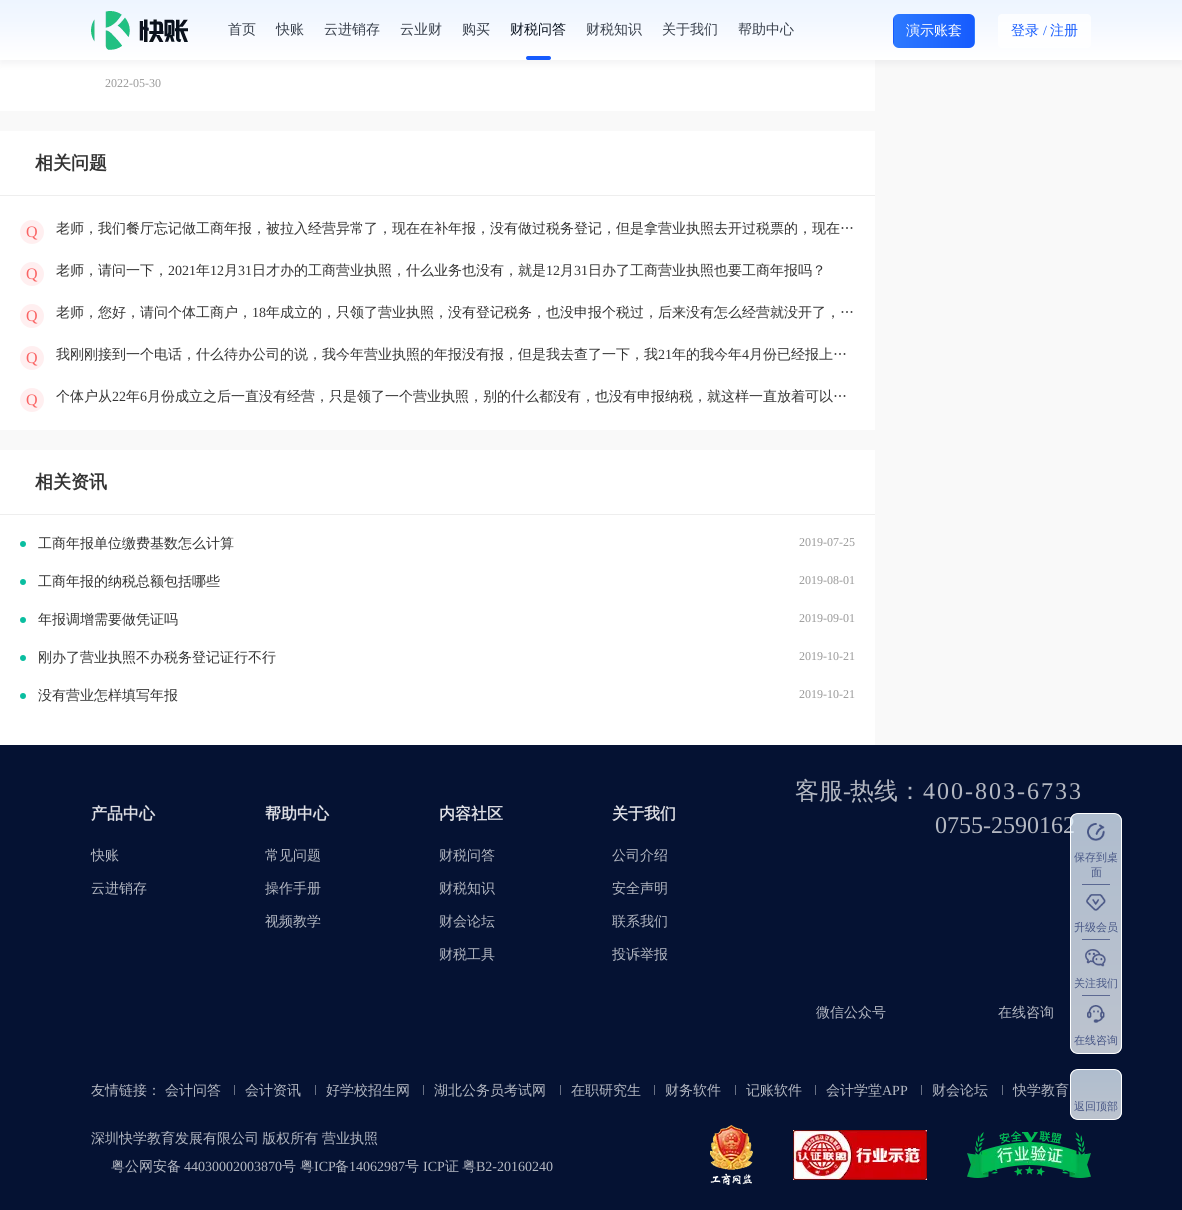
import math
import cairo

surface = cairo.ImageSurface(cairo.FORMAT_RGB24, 1182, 1210)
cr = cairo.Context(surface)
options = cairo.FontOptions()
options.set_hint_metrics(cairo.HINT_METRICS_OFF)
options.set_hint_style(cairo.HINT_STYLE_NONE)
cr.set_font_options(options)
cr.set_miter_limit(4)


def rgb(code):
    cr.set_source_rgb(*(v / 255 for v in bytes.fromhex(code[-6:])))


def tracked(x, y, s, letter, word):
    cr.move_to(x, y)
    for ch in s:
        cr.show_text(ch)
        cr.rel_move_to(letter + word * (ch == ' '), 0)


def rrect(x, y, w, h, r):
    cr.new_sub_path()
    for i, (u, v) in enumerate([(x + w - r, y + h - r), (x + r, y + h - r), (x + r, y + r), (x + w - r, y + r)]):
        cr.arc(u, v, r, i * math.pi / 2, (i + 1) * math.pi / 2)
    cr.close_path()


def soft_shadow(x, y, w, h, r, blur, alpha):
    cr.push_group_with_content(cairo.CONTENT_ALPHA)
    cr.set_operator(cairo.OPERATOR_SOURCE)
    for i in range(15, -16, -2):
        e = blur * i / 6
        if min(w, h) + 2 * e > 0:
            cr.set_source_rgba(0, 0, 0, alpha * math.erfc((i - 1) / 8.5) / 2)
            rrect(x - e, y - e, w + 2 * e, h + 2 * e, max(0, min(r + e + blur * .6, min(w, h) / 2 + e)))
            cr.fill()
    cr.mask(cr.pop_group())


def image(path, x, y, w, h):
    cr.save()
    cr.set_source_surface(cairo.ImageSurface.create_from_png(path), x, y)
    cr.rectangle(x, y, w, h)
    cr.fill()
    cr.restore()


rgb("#f9f9f9")
cr.paint()
rgb("#ffffff")
cr.rectangle(0, 60, 875, 51)
cr.fill()
rgb("#02091a")
soft_shadow(0, 4, 1182, 60, 0, 4, 0.05)
gradient = cairo.LinearGradient(591, 60, 591, 0)
gradient.add_color_stop_rgba(0, 1, 1, 1, 1)
gradient.add_color_stop_rgba(0.27, 0.984, 0.988, 1, 1)
gradient.add_color_stop_rgba(0.66, 0.949, 0.969, 1, 1)
gradient.add_color_stop_rgba(1, 0.933, 0.961, 1, 1)
cr.set_source(gradient)
cr.rectangle(0, 0, 1182, 60)
cr.fill()
image("img/1.png", 91, 11, 97, 39)
rgb("#165bfe")
rrect(526, 56, 25, 4, 2)
cr.fill()
cr.save()
rrect(893, 14, 82, 34, 6)
cr.clip()
gradient = cairo.LinearGradient(894, 31, 814, 31)
gradient.add_color_stop_rgba(0, 0.086, 0.357, 0.996, 1)
gradient.add_color_stop_rgba(1, 0.176, 0.475, 1, 1)
cr.set_source(gradient)
cr.rectangle(893, 14, 1, 34)
cr.fill()
gradient = cairo.LinearGradient(974, 31, 894, 31)
gradient.add_color_stop_rgba(0, 0.086, 0.357, 0.996, 1)
gradient.add_color_stop_rgba(1, 0.176, 0.475, 1, 1)
cr.set_source(gradient)
cr.rectangle(894, 14, 80, 34)
cr.fill()
gradient = cairo.LinearGradient(1054, 31, 974, 31)
gradient.add_color_stop_rgba(0, 0.086, 0.357, 0.996, 1)
gradient.add_color_stop_rgba(1, 0.176, 0.475, 1, 1)
cr.set_source(gradient)
cr.rectangle(974, 14, 1, 34)
cr.fill()
cr.restore()
cr.set_source_rgba(1, 1, 1, 0.8)
rrect(998, 14, 93, 34, 4)
cr.fill()
for x, y, w, h, color in [
    (0, 131, 875, 64, "#ffffff"),
    (0, 195, 875, 1, "#eeeeee"),
    (0, 196, 875, 234, "#ffffff"),
]:
    rgb(color)
    cr.rectangle(x, y, w, h)
    cr.fill()
rgb("#ffeff0")
cr.arc(32, 232, 12, 0, 2 * math.pi)
cr.fill()
cr.arc(32, 274, 12, 0, 2 * math.pi)
cr.fill()
cr.arc(32, 316, 12, 0, 2 * math.pi)
cr.fill()
cr.arc(32, 358, 12, 0, 2 * math.pi)
cr.fill()
cr.arc(32, 400, 12, 0, 2 * math.pi)
cr.fill()
for x, y, w, h, color in [
    (0, 450, 875, 64, "#ffffff"),
    (0, 514, 875, 1, "#eeeeee"),
    (0, 515, 875, 230, "#ffffff"),
]:
    rgb(color)
    cr.rectangle(x, y, w, h)
    cr.fill()
rgb("#0abea0")
cr.arc(23, 544, 3, 0, 2 * math.pi)
cr.fill()
cr.arc(23, 582, 3, 0, 2 * math.pi)
cr.fill()
cr.arc(23, 620, 3, 0, 2 * math.pi)
cr.fill()
cr.arc(23, 658, 3, 0, 2 * math.pi)
cr.fill()
cr.arc(23, 696, 3, 0, 2 * math.pi)
cr.fill()
for x, y, w, h, color in [
    (0, 745, 1182, 465, "#051233"),
    (234, 1085, 1, 10, "#697185"),
    (315, 1085, 1, 10, "#697185"),
    (423, 1085, 1, 10, "#697185"),
    (560, 1085, 1, 10, "#697185"),
    (654, 1085, 1, 10, "#697185"),
    (735, 1085, 1, 10, "#697185"),
    (815, 1085, 1, 10, "#697185"),
    (921, 1085, 1, 10, "#697185"),
    (1002, 1085, 1, 10, "#697185"),
]:
    rgb(color)
    cr.rectangle(x, y, w, h)
    cr.fill()
image("img/2.png", 710, 1125, 43, 60)
image("img/3.png", 793, 1130, 134, 50)
image("img/4.png", 967, 1131, 124, 47)
cr.save()
rrect(1070, 1069, 52, 51, 8)
cr.clip()
gradient = cairo.LinearGradient(1096, 1070, 1096, 1119)
gradient.add_color_stop_rgba(0, 0.686, 0.741, 0.808, 1)
gradient.add_color_stop_rgba(1, 0.737, 0.765, 0.808, 1)
cr.set_source(gradient)
cr.rectangle(1070, 1070, 52, 49)
cr.fill()
cr.restore()
rrect(1070.5, 1069.5, 51, 50, 7.5)
rgb("#ffffff")
cr.set_line_width(1)
cr.stroke()
cr.select_font_face("WenQuanYi Zen Hei Medium")
cr.set_font_size(14)
rgb("#38404c")
for x, y, s in [
    (228, 34, "首页"),
    (276, 34, "快账"),
    (324, 34, "云进销存"),
    (400, 34, "云业财"),
    (462, 34, "购买"),
]:
    cr.move_to(x, y)
    cr.show_text(s)
rgb("#09121f")
cr.move_to(510, 34)
cr.show_text("财税问答")
rgb("#38404c")
for x, y, s in [
    (586, 34, "财税知识"),
    (662, 34, "关于我们"),
    (738, 34, "帮助中心"),
]:
    cr.move_to(x, y)
    cr.show_text(s)
rgb("#ffffff")
cr.move_to(906, 35)
cr.show_text("演示账套")
rgb("#165bfe")
cr.move_to(1011, 35)
cr.show_text("登录")
cr.select_font_face("Liberation Serif")
cr.move_to(1043, 35)
cr.show_text("/")
cr.select_font_face("WenQuanYi Zen Hei Medium")
cr.move_to(1050, 35)
cr.show_text("注册")
cr.select_font_face("Liberation Serif")
cr.set_font_size(12)
rgb("#999999")
cr.move_to(105, 87)
cr.show_text("2022-05-30")
cr.select_font_face("WenQuanYi Zen Hei", cairo.FONT_SLANT_NORMAL, cairo.FONT_WEIGHT_BOLD)
cr.set_font_size(18)
rgb("#333333")
cr.move_to(35, 169)
cr.show_text("相关问题")
cr.select_font_face("Liberation Serif")
cr.set_font_size(16)
rgb("#fa6464")
cr.move_to(26, 237)
cr.show_text("Q")
cr.select_font_face("WenQuanYi Zen Hei Medium")
cr.set_font_size(14)
rgb("#333333")
cr.move_to(56, 233)
cr.show_text("老师，我们餐厅忘记做工商年报，被拉入经营异常了，现在在补年报，没有做过税务登记，但是拿营业执照去开过税票的，现在…")
cr.select_font_face("Liberation Serif")
cr.set_font_size(16)
rgb("#fa6464")
cr.move_to(26, 279)
cr.show_text("Q")
cr.select_font_face("WenQuanYi Zen Hei Medium")
cr.set_font_size(14)
rgb("#333333")
cr.move_to(56, 275)
cr.show_text("老师，请问一下，")
cr.select_font_face("Liberation Serif")
cr.move_to(168, 275)
cr.show_text("2021")
cr.select_font_face("WenQuanYi Zen Hei Medium")
cr.move_to(196, 275)
cr.show_text("年")
cr.select_font_face("Liberation Serif")
cr.move_to(210, 275)
cr.show_text("12")
cr.select_font_face("WenQuanYi Zen Hei Medium")
cr.move_to(224, 275)
cr.show_text("月")
cr.select_font_face("Liberation Serif")
cr.move_to(238, 275)
cr.show_text("31")
cr.select_font_face("WenQuanYi Zen Hei Medium")
cr.move_to(252, 275)
cr.show_text("日才办的工商营业执照，什么业务也没有，就是")
cr.select_font_face("Liberation Serif")
cr.move_to(546, 275)
cr.show_text("12")
cr.select_font_face("WenQuanYi Zen Hei Medium")
cr.move_to(560, 275)
cr.show_text("月")
cr.select_font_face("Liberation Serif")
cr.move_to(574, 275)
cr.show_text("31")
cr.select_font_face("WenQuanYi Zen Hei Medium")
cr.move_to(588, 275)
cr.show_text("日办了工商营业执照也要工商年报吗？")
cr.select_font_face("Liberation Serif")
cr.set_font_size(16)
rgb("#fa6464")
cr.move_to(26, 321)
cr.show_text("Q")
cr.select_font_face("WenQuanYi Zen Hei Medium")
cr.set_font_size(14)
rgb("#333333")
cr.move_to(56, 317)
cr.show_text("老师，您好，请问个体工商户，")
cr.select_font_face("Liberation Serif")
cr.move_to(252, 317)
cr.show_text("18")
cr.select_font_face("WenQuanYi Zen Hei Medium")
cr.move_to(266, 317)
cr.show_text("年成立的，只领了营业执照，没有登记税务，也没申报个税过，后来没有怎么经营就没开了，…")
cr.select_font_face("Liberation Serif")
cr.set_font_size(16)
rgb("#fa6464")
cr.move_to(26, 363)
cr.show_text("Q")
cr.select_font_face("WenQuanYi Zen Hei Medium")
cr.set_font_size(14)
rgb("#333333")
cr.move_to(56, 359)
cr.show_text("我刚刚接到一个电话，什么待办公司的说，我今年营业执照的年报没有报，但是我去查了一下，我")
cr.select_font_face("Liberation Serif")
cr.move_to(658, 359)
cr.show_text("21")
cr.select_font_face("WenQuanYi Zen Hei Medium")
cr.move_to(672, 359)
cr.show_text("年的我今年")
cr.select_font_face("Liberation Serif")
cr.move_to(742, 359)
cr.show_text("4")
cr.select_font_face("WenQuanYi Zen Hei Medium")
cr.move_to(749, 359)
cr.show_text("月份已经报上…")
cr.select_font_face("Liberation Serif")
cr.set_font_size(16)
rgb("#fa6464")
cr.move_to(26, 405)
cr.show_text("Q")
cr.select_font_face("WenQuanYi Zen Hei Medium")
cr.set_font_size(14)
rgb("#333333")
cr.move_to(56, 401)
cr.show_text("个体户从")
cr.select_font_face("Liberation Serif")
cr.move_to(112, 401)
cr.show_text("22")
cr.select_font_face("WenQuanYi Zen Hei Medium")
cr.move_to(126, 401)
cr.show_text("年")
cr.select_font_face("Liberation Serif")
cr.move_to(140, 401)
cr.show_text("6")
cr.select_font_face("WenQuanYi Zen Hei Medium")
cr.move_to(147, 401)
cr.show_text("月份成立之后一直没有经营，只是领了一个营业执照，别的什么都没有，也没有申报纳税，就这样一直放着可以…")
cr.select_font_face("WenQuanYi Zen Hei", cairo.FONT_SLANT_NORMAL, cairo.FONT_WEIGHT_BOLD)
cr.set_font_size(18)
cr.move_to(35, 488)
cr.show_text("相关资讯")
cr.select_font_face("WenQuanYi Zen Hei Medium")
cr.set_font_size(14)
cr.move_to(38, 548)
cr.show_text("工商年报单位缴费基数怎么计算")
cr.select_font_face("Liberation Serif")
cr.set_font_size(12)
rgb("#999999")
cr.move_to(799, 546)
cr.show_text("2019-07-25")
cr.select_font_face("WenQuanYi Zen Hei Medium")
cr.set_font_size(14)
rgb("#333333")
cr.move_to(38, 586)
cr.show_text("工商年报的纳税总额包括哪些")
cr.select_font_face("Liberation Serif")
cr.set_font_size(12)
rgb("#999999")
cr.move_to(799, 584)
cr.show_text("2019-08-01")
cr.select_font_face("WenQuanYi Zen Hei Medium")
cr.set_font_size(14)
rgb("#333333")
cr.move_to(38, 624)
cr.show_text("年报调增需要做凭证吗")
cr.select_font_face("Liberation Serif")
cr.set_font_size(12)
rgb("#999999")
cr.move_to(799, 622)
cr.show_text("2019-09-01")
cr.select_font_face("WenQuanYi Zen Hei Medium")
cr.set_font_size(14)
rgb("#333333")
cr.move_to(38, 662)
cr.show_text("刚办了营业执照不办税务登记证行不行")
cr.select_font_face("Liberation Serif")
cr.set_font_size(12)
rgb("#999999")
cr.move_to(799, 660)
cr.show_text("2019-10-21")
cr.select_font_face("WenQuanYi Zen Hei Medium")
cr.set_font_size(14)
rgb("#333333")
cr.move_to(38, 700)
cr.show_text("没有营业怎样填写年报")
cr.select_font_face("Liberation Serif")
cr.set_font_size(12)
rgb("#999999")
cr.move_to(799, 698)
cr.show_text("2019-10-21")
cr.select_font_face("WenQuanYi Zen Hei", cairo.FONT_SLANT_NORMAL, cairo.FONT_WEIGHT_BOLD)
cr.set_font_size(16)
rgb("#dcdde3")
cr.move_to(91, 819)
cr.show_text("产品中心")
cr.select_font_face("WenQuanYi Zen Hei Medium")
cr.set_font_size(14)
rgb("#b4b8c2")
cr.move_to(91, 860)
cr.show_text("快账")
cr.move_to(91, 893)
cr.show_text("云进销存")
cr.select_font_face("WenQuanYi Zen Hei", cairo.FONT_SLANT_NORMAL, cairo.FONT_WEIGHT_BOLD)
cr.set_font_size(16)
rgb("#dcdde3")
cr.move_to(265, 819)
cr.show_text("帮助中心")
cr.select_font_face("WenQuanYi Zen Hei Medium")
cr.set_font_size(14)
rgb("#b4b8c2")
for x, y, s in [
    (265, 860, "常见问题"),
    (265, 893, "操作手册"),
    (265, 926, "视频教学"),
]:
    cr.move_to(x, y)
    cr.show_text(s)
cr.select_font_face("WenQuanYi Zen Hei", cairo.FONT_SLANT_NORMAL, cairo.FONT_WEIGHT_BOLD)
cr.set_font_size(16)
rgb("#dcdde3")
cr.move_to(439, 819)
cr.show_text("内容社区")
cr.select_font_face("WenQuanYi Zen Hei Medium")
cr.set_font_size(14)
rgb("#b4b8c2")
for x, y, s in [
    (439, 860, "财税问答"),
    (439, 893, "财税知识"),
    (439, 926, "财会论坛"),
    (439, 959, "财税工具"),
]:
    cr.move_to(x, y)
    cr.show_text(s)
cr.select_font_face("WenQuanYi Zen Hei", cairo.FONT_SLANT_NORMAL, cairo.FONT_WEIGHT_BOLD)
cr.set_font_size(16)
rgb("#dcdde3")
cr.move_to(612, 819)
cr.show_text("关于我们")
cr.select_font_face("WenQuanYi Zen Hei Medium")
cr.set_font_size(14)
rgb("#b4b8c2")
for x, y, s in [
    (612, 860, "公司介绍"),
    (612, 893, "安全声明"),
    (612, 926, "联系我们"),
    (612, 959, "投诉举报"),
]:
    cr.move_to(x, y)
    cr.show_text(s)
cr.set_font_size(24)
cr.move_to(795, 799)
cr.show_text("客服")
cr.select_font_face("Liberation Serif")
cr.move_to(843, 799)
cr.show_text("-")
cr.select_font_face("WenQuanYi Zen Hei Medium")
cr.move_to(850, 799)
cr.show_text("热线：")
cr.select_font_face("Liberation Serif")
tracked(923, 799, "400-803-6733", 2, 0)
cr.move_to(935, 833)
cr.show_text("0755-2590162")
cr.select_font_face("WenQuanYi Zen Hei Medium")
cr.set_font_size(14)
for x, y, s in [
    (816, 1017, "微信公众号"),
    (998, 1017, "在线咨询"),
    (91, 1095, "友情链接："),
    (165, 1095, "会计问答"),
    (245, 1095, "会计资讯"),
    (326, 1095, "好学校招生网"),
    (434, 1095, "湖北公务员考试网"),
    (571, 1095, "在职研究生"),
    (665, 1095, "财务软件"),
    (746, 1095, "记账软件"),
    (826, 1095, "会计学堂"),
]:
    cr.move_to(x, y)
    cr.show_text(s)
cr.select_font_face("Liberation Serif")
cr.move_to(882, 1095)
cr.show_text("APP")
cr.select_font_face("WenQuanYi Zen Hei Medium")
cr.move_to(932, 1095)
cr.show_text("财会论坛")
cr.move_to(1013, 1095)
cr.show_text("快学教育")
tracked(91, 1143, "深圳快学教育发展有限公司 版权所有", 0, -1)
cr.move_to(322, 1143)
cr.show_text("营业执照")
cr.move_to(111, 1171)
cr.show_text("粤公网安备")
cr.select_font_face("Liberation Serif")
cr.move_to(184, 1171)
cr.show_text("44030002003870")
cr.select_font_face("WenQuanYi Zen Hei Medium")
cr.move_to(282, 1171)
cr.show_text("号")
cr.move_to(300, 1171)
cr.show_text("粤")
cr.select_font_face("Liberation Serif")
cr.move_to(314, 1171)
cr.show_text("ICP")
cr.select_font_face("WenQuanYi Zen Hei Medium")
cr.move_to(335, 1171)
cr.show_text("备")
cr.select_font_face("Liberation Serif")
cr.move_to(349, 1171)
cr.show_text("14062987")
cr.select_font_face("WenQuanYi Zen Hei Medium")
cr.move_to(405, 1171)
cr.show_text("号")
cr.select_font_face("Liberation Serif")
cr.move_to(423, 1171)
cr.show_text("ICP")
cr.select_font_face("WenQuanYi Zen Hei Medium")
tracked(445, 1171, "证 粤", 0, -1)
cr.select_font_face("Liberation Serif")
cr.move_to(476, 1171)
cr.show_text("B2-20160240")
cr.save()
rrect(1070, 813, 52, 241, 8)
cr.clip()
gradient = cairo.LinearGradient(1096, 814, 1096, 1053)
gradient.add_color_stop_rgba(0, 0.898, 0.953, 1, 0.76)
gradient.add_color_stop_rgba(1, 0.965, 0.984, 1, 0.76)
cr.set_source(gradient)
cr.rectangle(1070, 814, 52, 239)
cr.fill()
cr.restore()
rrect(1070.5, 813.5, 51, 240, 7.5)
rgb("#ffffff")
cr.stroke()
image("img/5.png", 1087, 823, 18, 18)
cr.select_font_face("WenQuanYi Zen Hei Medium")
cr.set_font_size(11)
rgb("#475685")
cr.move_to(1074, 861)
cr.show_text("保存到桌")
cr.move_to(1091, 876)
cr.show_text("面")
rgb("#5a6892")
cr.rectangle(1082, 884, 28, 1)
cr.fill()
image("img/6.png", 1086, 894, 20, 17)
rgb("#475685")
cr.move_to(1074, 931)
cr.show_text("升级会员")
rgb("#5b6992")
cr.rectangle(1082, 939, 28, 1)
cr.fill()
image("img/7.png", 1085, 949, 21, 18)
rgb("#475685")
cr.move_to(1074, 987)
cr.show_text("关注我们")
rgb("#5d6992")
cr.rectangle(1082, 995, 28, 1)
cr.fill()
image("img/8.png", 1087, 1005, 18, 18)
rgb("#475685")
cr.move_to(1074, 1044)
cr.show_text("在线咨询")
cr.move_to(1074, 1110)
cr.show_text("返回顶部")
surface.write_to_png("page.png")
